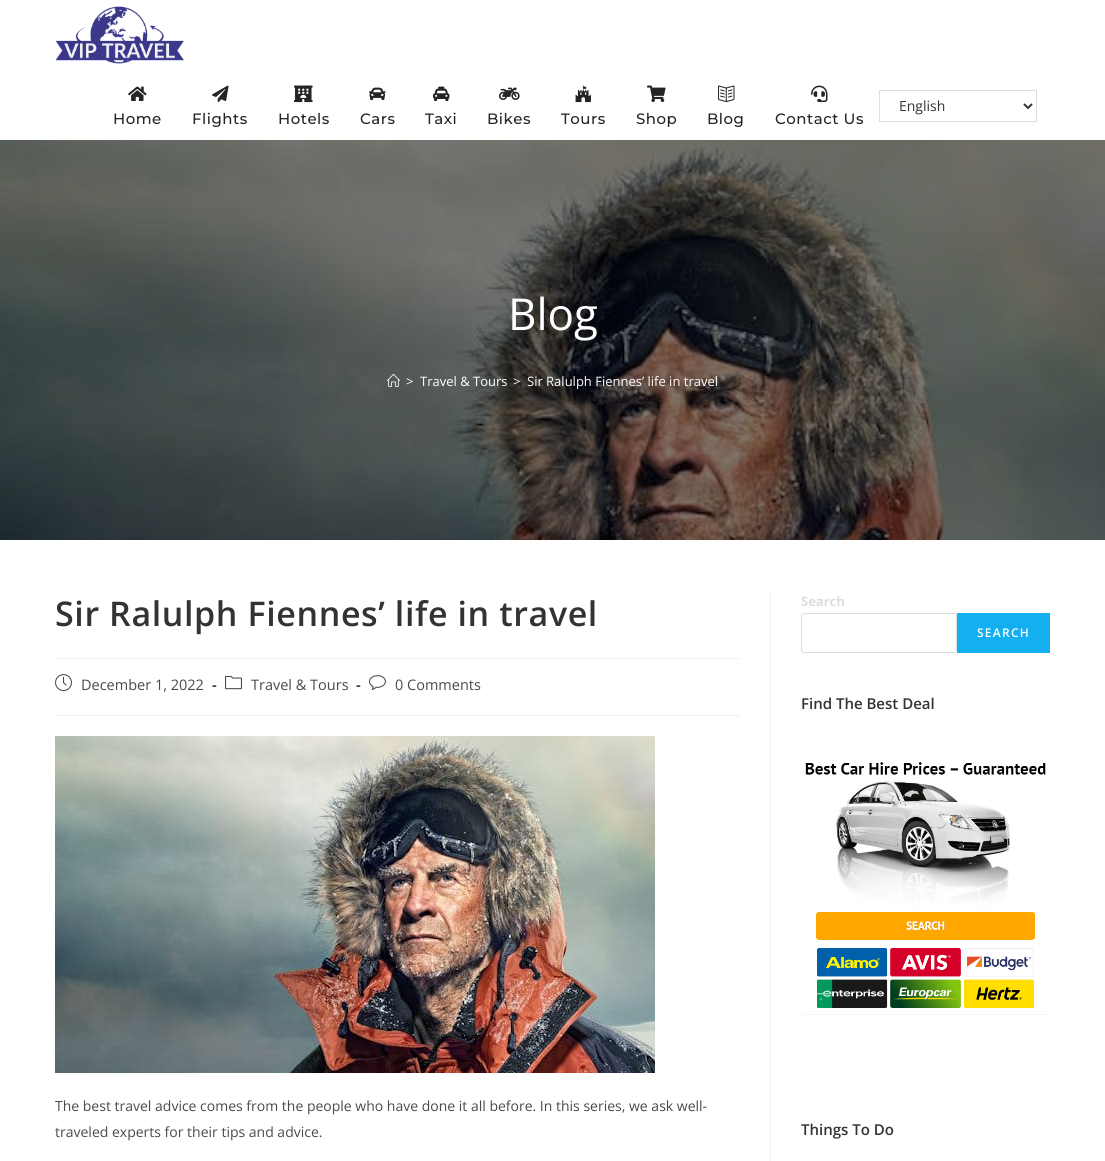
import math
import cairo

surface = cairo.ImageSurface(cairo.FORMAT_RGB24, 1105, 1161)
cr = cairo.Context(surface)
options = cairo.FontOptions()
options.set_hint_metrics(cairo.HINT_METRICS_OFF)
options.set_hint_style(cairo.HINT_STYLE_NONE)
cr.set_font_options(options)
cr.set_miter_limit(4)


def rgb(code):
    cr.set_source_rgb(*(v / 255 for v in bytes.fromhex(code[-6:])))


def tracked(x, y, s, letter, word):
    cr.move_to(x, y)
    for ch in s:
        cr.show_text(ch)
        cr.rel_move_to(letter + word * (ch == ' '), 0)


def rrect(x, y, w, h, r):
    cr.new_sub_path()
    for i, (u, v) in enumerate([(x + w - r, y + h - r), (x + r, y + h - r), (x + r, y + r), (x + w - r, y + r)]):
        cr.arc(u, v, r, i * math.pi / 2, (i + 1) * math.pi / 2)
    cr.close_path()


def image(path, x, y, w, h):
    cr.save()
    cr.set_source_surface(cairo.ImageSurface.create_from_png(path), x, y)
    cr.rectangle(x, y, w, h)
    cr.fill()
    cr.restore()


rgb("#ffffff")
cr.paint()
image("img/1.png", 55, 6, 129, 58)
cr.rectangle(879.5, 90.5, 157, 31)
rgb("#dddddd")
cr.set_line_width(1)
cr.stroke()
cr.new_path()
cr.move_to(1024, 104)
cr.line_to(1028, 108)
cr.line_to(1032, 104)
rgb("#333333")
cr.set_line_width(2)
cr.stroke()
image("img/2.png", 128, 86, 19, 15)
image("img/3.png", 212, 85, 17, 17)
image("img/4.png", 294, 85, 19, 18)
image("img/5.png", 369, 87, 17, 13)
image("img/6.png", 433, 86, 17, 15)
image("img/7.png", 499, 87, 21, 13)
image("img/8.png", 575, 85, 16, 18)
image("img/9.png", 647, 85, 19, 17)
image("img/10.png", 718, 85, 17, 18)
image("img/11.png", 811, 85, 17, 18)
image("img/12.png", 0, 140, 1105, 400)
image("img/13.png", 387, 373, 13, 14)
for x, y, w, h, color in [
    (770, 590, 1, 571, "#f1f1f1"),
    (55, 658, 685, 1, "#f1f1f1"),
    (55, 715, 685, 1, "#f1f1f1"),
]:
    rgb(color)
    cr.rectangle(x, y, w, h)
    cr.fill()
image("img/14.png", 55, 674, 17, 18)
image("img/15.png", 225, 675, 17, 15)
image("img/16.png", 369, 675, 17, 15)
image("img/17.png", 55, 736, 600, 337)
rrect(801.5, 613.5, 155, 39, 2.5)
rgb("#dddddd")
cr.set_line_width(1)
cr.stroke()
rgb("#13aff0")
cr.rectangle(957, 613, 93, 40)
cr.fill()
image("img/18.png", 801, 762, 249, 253)
cr.select_font_face("Open Sans")
cr.set_font_size(14)
rgb("#333333")
cr.move_to(899, 111)
cr.show_text("English")
cr.select_font_face("Montserrat Thin")
cr.set_font_size(15)
rgb("#252525")
for x, y, s in [
    (113, 124, "Home"),
    (192, 124, "Flights"),
    (278, 124, "Hotels"),
    (360, 124, "Cars"),
    (425, 124, "Taxi"),
    (487, 124, "Bikes"),
    (561, 124, "Tours"),
    (636, 124, "Shop"),
    (707, 124, "Blog"),
    (775, 124, "Contact Us"),
]:
    tracked(x, y, s, 0.5, 0)
cr.select_font_face("Open Sans")
cr.set_font_size(44)
rgb("#ffffff")
cr.move_to(508, 330)
cr.show_text("Blog")
cr.set_font_size(13)
for x, y, s in [
    (406, 386, ">"),
    (420, 386, "Travel & Tours"),
    (513, 386, ">"),
    (527, 386, "Sir Ralulph Fiennes’ life in travel"),
]:
    cr.move_to(x, y)
    cr.show_text(s)
cr.select_font_face("Open Sans SemiBold")
cr.set_font_size(34)
rgb("#333333")
tracked(55, 626, "Sir Ralulph Fiennes’ life in travel", 0.6, 0)
cr.select_font_face("Open Sans")
cr.set_font_size(14.5)
rgb("#4a4a4a")
cr.move_to(81, 690)
cr.show_text("December 1, 2022")
cr.select_font_face("Open Sans", cairo.FONT_SLANT_NORMAL, cairo.FONT_WEIGHT_BOLD)
cr.move_to(212, 690)
cr.show_text("-")
cr.select_font_face("Open Sans")
cr.move_to(251, 690)
cr.show_text("Travel & Tours")
cr.select_font_face("Open Sans", cairo.FONT_SLANT_NORMAL, cairo.FONT_WEIGHT_BOLD)
cr.move_to(356, 690)
cr.show_text("-")
cr.select_font_face("Open Sans")
cr.move_to(395, 690)
cr.show_text("0 Comments")
cr.set_font_size(14)
cr.move_to(55, 1111)
cr.show_text("The best travel advice comes from the people who have done it all before. In this series, we ask well-")
cr.move_to(55, 1137)
cr.show_text("traveled experts for their tips and advice.")
cr.select_font_face("Open Sans", cairo.FONT_SLANT_NORMAL, cairo.FONT_WEIGHT_BOLD)
cr.set_font_size(13)
rgb("#dddddd")
cr.move_to(801, 606)
cr.show_text("Search")
cr.select_font_face("Open Sans SemiBold")
cr.set_font_size(12)
rgb("#ffffff")
tracked(977, 637, "SEARCH", 1.25, 0)
cr.set_font_size(15)
rgb("#333333")
cr.move_to(801, 709)
cr.show_text("Find The Best Deal")
cr.move_to(801, 1135)
cr.show_text("Things To Do")
surface.write_to_png("page.png")
